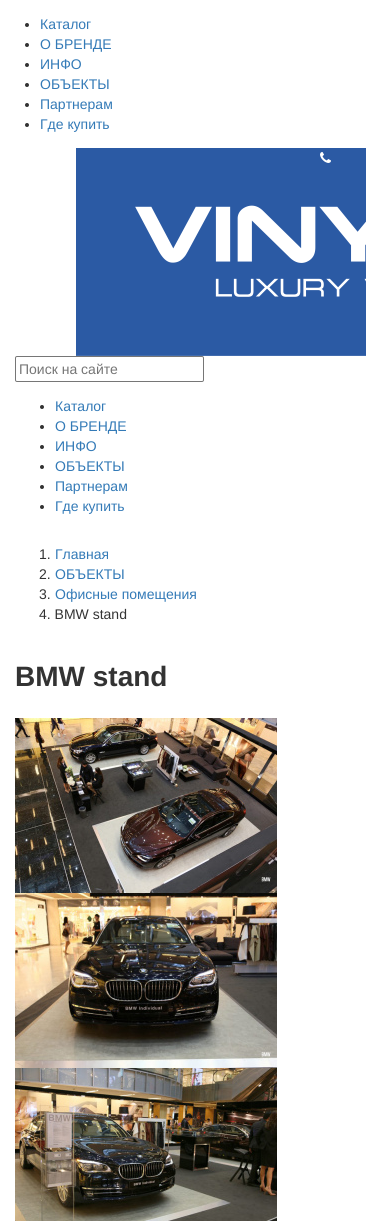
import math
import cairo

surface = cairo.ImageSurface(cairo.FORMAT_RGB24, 366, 1221)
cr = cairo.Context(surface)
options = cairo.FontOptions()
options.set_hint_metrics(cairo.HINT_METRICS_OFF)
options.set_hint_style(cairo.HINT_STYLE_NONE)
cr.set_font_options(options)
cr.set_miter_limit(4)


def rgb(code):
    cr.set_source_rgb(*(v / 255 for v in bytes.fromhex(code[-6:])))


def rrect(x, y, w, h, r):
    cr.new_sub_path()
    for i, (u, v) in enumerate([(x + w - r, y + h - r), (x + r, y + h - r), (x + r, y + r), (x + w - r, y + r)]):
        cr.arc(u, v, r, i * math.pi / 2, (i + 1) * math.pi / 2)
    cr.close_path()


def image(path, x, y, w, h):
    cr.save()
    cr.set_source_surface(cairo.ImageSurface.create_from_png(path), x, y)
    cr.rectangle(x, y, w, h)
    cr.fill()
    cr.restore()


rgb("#ffffff")
cr.paint()
rgb("#333333")
cr.arc(27, 25, 2, 0, 2 * math.pi)
cr.fill()
cr.arc(27, 45, 2, 0, 2 * math.pi)
cr.fill()
cr.arc(27, 65, 2, 0, 2 * math.pi)
cr.fill()
cr.arc(27, 85, 2, 0, 2 * math.pi)
cr.fill()
cr.arc(27, 105, 2, 0, 2 * math.pi)
cr.fill()
cr.arc(27, 125, 2, 0, 2 * math.pi)
cr.fill()
image("img/1.png", 76, 148, 290, 208)
image("img/2.png", 320, 152, 11, 11)
rrect(15.5, 356.5, 188, 25, 1.5)
rgb("#767676")
cr.set_line_width(1)
cr.stroke()
rgb("#333333")
cr.arc(42, 407, 2, 0, 2 * math.pi)
cr.fill()
cr.arc(42, 427, 2, 0, 2 * math.pi)
cr.fill()
cr.arc(42, 447, 2, 0, 2 * math.pi)
cr.fill()
cr.arc(42, 467, 2, 0, 2 * math.pi)
cr.fill()
cr.arc(42, 487, 2, 0, 2 * math.pi)
cr.fill()
cr.arc(42, 507, 2, 0, 2 * math.pi)
cr.fill()
image("img/3.png", 15, 718, 262, 175)
image("img/4.png", 15, 893, 262, 175)
image("img/5.png", 15, 1068, 262, 153)
cr.select_font_face("Liberation Sans")
cr.set_font_size(14)
rgb("#337ab7")
for x, y, s in [
    (40, 29, "Каталог"),
    (40, 49, "О БРЕНДЕ"),
    (40, 69, "ИНФО"),
    (40, 89, "ОБЪЕКТЫ"),
    (40, 109, "Партнерам"),
    (40, 129, "Где купить"),
]:
    cr.move_to(x, y)
    cr.show_text(s)
rgb("#757575")
cr.move_to(19, 374)
cr.show_text("Поиск на сайте")
rgb("#337ab7")
for x, y, s in [
    (55, 411, "Каталог"),
    (55, 431, "О БРЕНДЕ"),
    (55, 451, "ИНФО"),
    (55, 471, "ОБЪЕКТЫ"),
    (55, 491, "Партнерам"),
    (55, 511, "Где купить"),
]:
    cr.move_to(x, y)
    cr.show_text(s)
rgb("#333333")
cr.move_to(39, 559)
cr.show_text("1.")
rgb("#337ab7")
cr.move_to(55, 559)
cr.show_text("Главная")
rgb("#333333")
cr.move_to(39, 579)
cr.show_text("2.")
rgb("#337ab7")
cr.move_to(55, 579)
cr.show_text("ОБЪЕКТЫ")
rgb("#333333")
cr.move_to(39, 599)
cr.show_text("3.")
rgb("#337ab7")
cr.move_to(55, 599)
cr.show_text("Офисные помещения")
rgb("#333333")
cr.move_to(39, 619)
cr.show_text("4. BMW stand")
cr.select_font_face("Liberation Sans", cairo.FONT_SLANT_NORMAL, cairo.FONT_WEIGHT_BOLD)
cr.set_font_size(28)
cr.move_to(15, 686)
cr.show_text("BMW stand")
surface.write_to_png("page.png")
